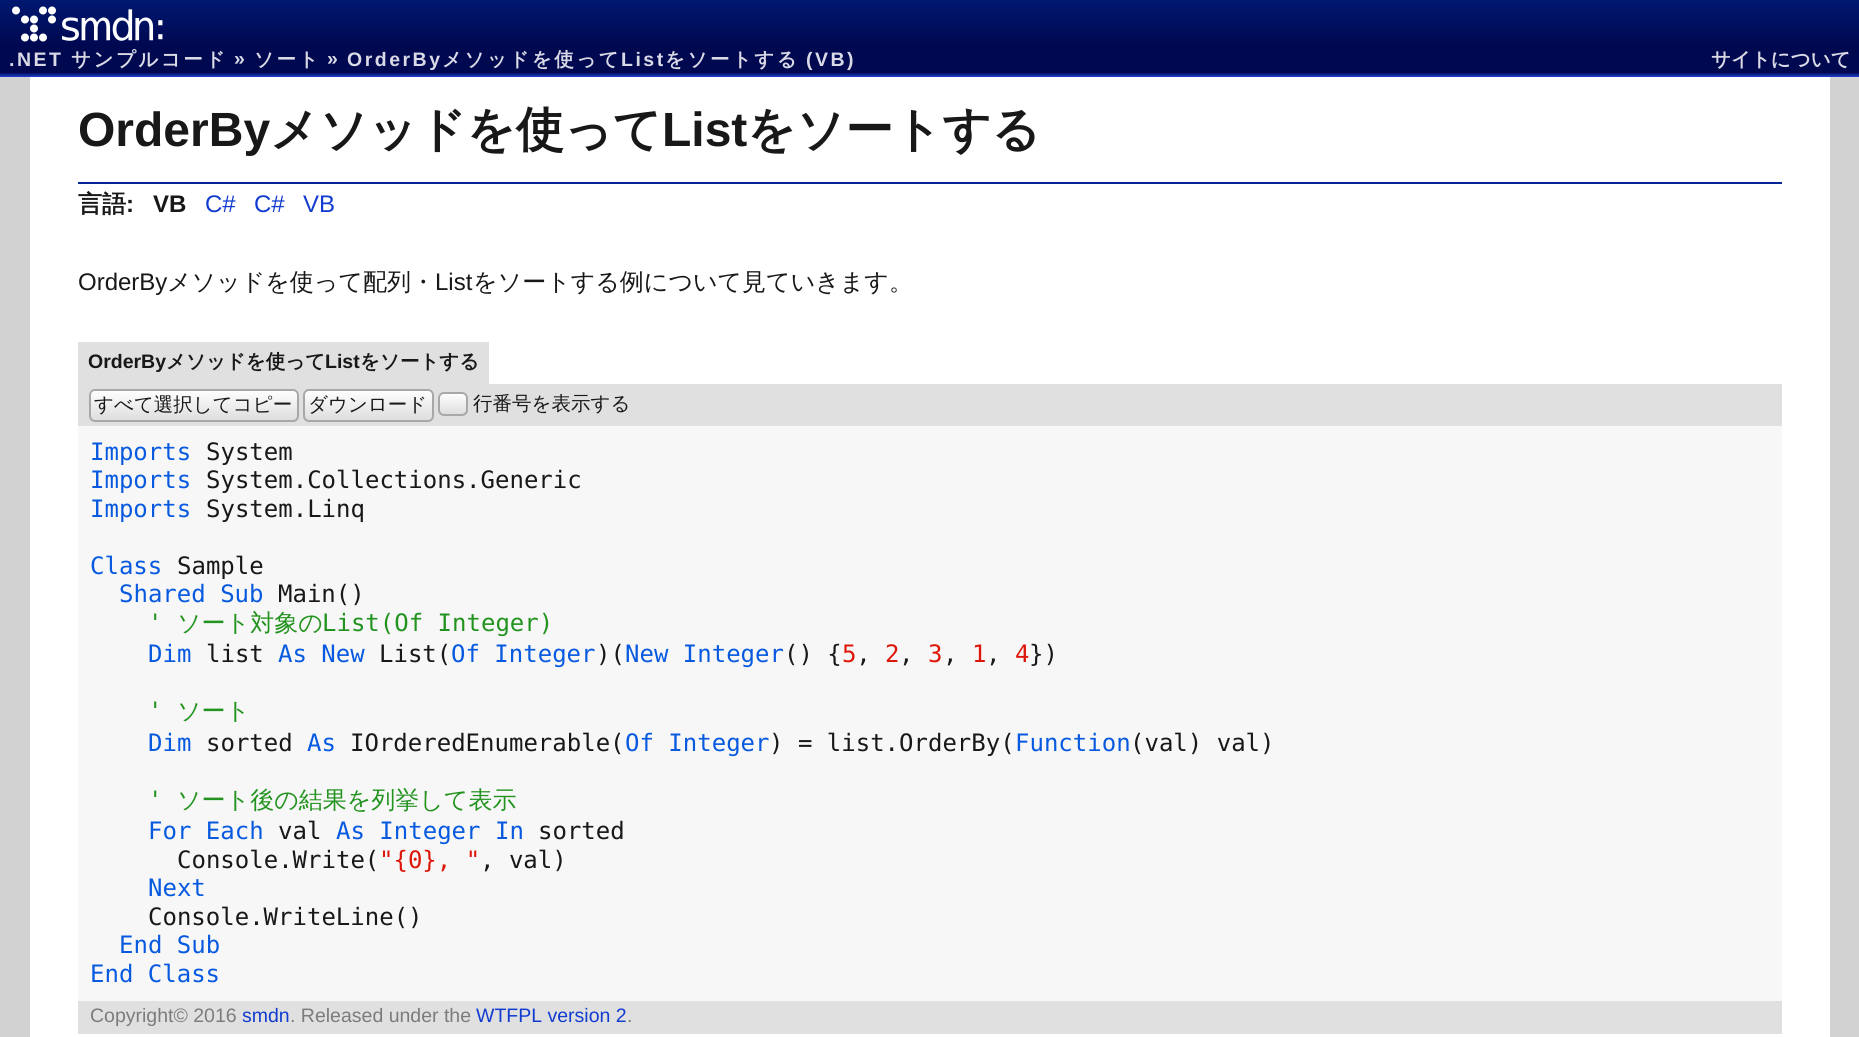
import math
import cairo

surface = cairo.ImageSurface(cairo.FORMAT_RGB24, 1859, 1037)
cr = cairo.Context(surface)
options = cairo.FontOptions()
options.set_hint_metrics(cairo.HINT_METRICS_OFF)
options.set_hint_style(cairo.HINT_STYLE_NONE)
cr.set_font_options(options)
cr.set_miter_limit(4)


def rgb(code):
    cr.set_source_rgb(*(v / 255 for v in bytes.fromhex(code[-6:])))


def tracked(x, y, s, letter, word):
    cr.move_to(x, y)
    for ch in s:
        cr.show_text(ch)
        cr.rel_move_to(letter + word * (ch == ' '), 0)


def rrect(x, y, w, h, r):
    cr.new_sub_path()
    for i, (u, v) in enumerate([(x + w - r, y + h - r), (x + r, y + h - r), (x + r, y + r), (x + w - r, y + r)]):
        cr.arc(u, v, r, i * math.pi / 2, (i + 1) * math.pi / 2)
    cr.close_path()


def image(path, x, y, w, h):
    cr.save()
    cr.set_source_surface(cairo.ImageSurface.create_from_png(path), x, y)
    cr.rectangle(x, y, w, h)
    cr.fill()
    cr.restore()


rgb("#d2d2d2")
cr.paint()
gradient = cairo.LinearGradient(930, 0, 930, 77)
gradient.add_color_stop_rgba(0, 0, 0.094, 0.439, 1)
gradient.add_color_stop_rgba(0.6, 0, 0.031, 0.314, 1)
gradient.add_color_stop_rgba(0.94, 0, 0.031, 0.314, 1)
gradient.add_color_stop_rgba(1, 0.125, 0.251, 0.816, 1)
cr.set_source(gradient)
cr.rectangle(0, 0, 1859, 77)
cr.fill()
image("img/1.png", 12, 6, 151, 36)
for x, y, w, h, color in [
    (30, 77, 1800, 960, "#ffffff"),
    (78, 182, 1704, 2, "#052498"),
    (78, 342, 411, 42, "#e0e0e0"),
    (78, 384, 1704, 42, "#e0e0e0"),
]:
    rgb(color)
    cr.rectangle(x, y, w, h)
    cr.fill()
cr.save()
rrect(89, 389, 210, 33, 6)
cr.clip()
gradient = cairo.LinearGradient(194, 390, 194, 420)
gradient.add_color_stop_rgba(0, 1, 1, 1, 1)
gradient.add_color_stop_rgba(1, 0.871, 0.871, 0.871, 1)
cr.set_source(gradient)
cr.rectangle(89, 390, 210, 30)
cr.fill()
cr.restore()
rrect(90, 390, 208, 31, 5)
rgb("#a8a8a8")
cr.stroke()
cr.save()
rrect(303, 389, 131, 33, 6)
cr.clip()
gradient = cairo.LinearGradient(368, 390, 368, 420)
gradient.add_color_stop_rgba(0, 1, 1, 1, 1)
gradient.add_color_stop_rgba(1, 0.871, 0.871, 0.871, 1)
cr.set_source(gradient)
cr.rectangle(303, 390, 131, 30)
cr.fill()
cr.restore()
rrect(304, 390, 129, 31, 5)
cr.stroke()
cr.save()
rrect(438, 392, 30, 24, 6)
cr.clip()
gradient = cairo.LinearGradient(453, 393, 453, 414)
gradient.add_color_stop_rgba(0, 1, 1, 1, 1)
gradient.add_color_stop_rgba(1, 0.871, 0.871, 0.871, 1)
cr.set_source(gradient)
cr.rectangle(438, 393, 30, 21)
cr.fill()
cr.restore()
rrect(439, 393, 28, 22, 5)
cr.stroke()
rgb("#f7f7f7")
cr.rectangle(78, 426, 1704, 575)
cr.fill()
rgb("#e0e0e0")
cr.rectangle(78, 1001, 1704, 33)
cr.fill()
cr.select_font_face("Liberation Sans", cairo.FONT_SLANT_NORMAL, cairo.FONT_WEIGHT_BOLD)
cr.set_font_size(19.5)
rgb("#d9dae5")
tracked(9, 66, ".NET", 2.5, 0)
cr.select_font_face("WenQuanYi Zen Hei", cairo.FONT_SLANT_NORMAL, cairo.FONT_WEIGHT_BOLD)
tracked(71, 66, "サンプルコード", 2.5, 0)
cr.select_font_face("Liberation Sans", cairo.FONT_SLANT_NORMAL, cairo.FONT_WEIGHT_BOLD)
tracked(234, 65, "»", 2.5, 0)
cr.select_font_face("WenQuanYi Zen Hei", cairo.FONT_SLANT_NORMAL, cairo.FONT_WEIGHT_BOLD)
tracked(254, 66, "ソート", 2.5, 0)
cr.select_font_face("Liberation Sans", cairo.FONT_SLANT_NORMAL, cairo.FONT_WEIGHT_BOLD)
tracked(327, 65, "»", 2.5, 0)
tracked(347, 66, "OrderBy", 2.5, 0)
cr.select_font_face("WenQuanYi Zen Hei", cairo.FONT_SLANT_NORMAL, cairo.FONT_WEIGHT_BOLD)
tracked(442, 66, "メソッドを使って", 2.5, 0)
cr.select_font_face("Liberation Sans", cairo.FONT_SLANT_NORMAL, cairo.FONT_WEIGHT_BOLD)
tracked(621, 66, "List", 2.5, 0)
cr.select_font_face("WenQuanYi Zen Hei", cairo.FONT_SLANT_NORMAL, cairo.FONT_WEIGHT_BOLD)
tracked(665, 66, "をソートする", 2.5, 0)
cr.select_font_face("Liberation Sans", cairo.FONT_SLANT_NORMAL, cairo.FONT_WEIGHT_BOLD)
tracked(806, 66, "(VB)", 2.5, 0)
cr.select_font_face("WenQuanYi Zen Hei", cairo.FONT_SLANT_NORMAL, cairo.FONT_WEIGHT_BOLD)
cr.move_to(1711, 66)
cr.show_text("サイトについて")
cr.select_font_face("Liberation Sans", cairo.FONT_SLANT_NORMAL, cairo.FONT_WEIGHT_BOLD)
cr.set_font_size(48)
rgb("#181818")
cr.move_to(78, 146)
cr.show_text("OrderBy")
cr.select_font_face("WenQuanYi Zen Hei", cairo.FONT_SLANT_NORMAL, cairo.FONT_WEIGHT_BOLD)
cr.move_to(270, 146)
cr.show_text("メソッドを使って")
cr.select_font_face("Liberation Sans", cairo.FONT_SLANT_NORMAL, cairo.FONT_WEIGHT_BOLD)
cr.move_to(662, 146)
cr.show_text("List")
cr.select_font_face("WenQuanYi Zen Hei", cairo.FONT_SLANT_NORMAL, cairo.FONT_WEIGHT_BOLD)
cr.move_to(747, 146)
cr.show_text("をソートする")
cr.set_font_size(24)
cr.move_to(78, 212)
cr.show_text("言語")
cr.select_font_face("Liberation Sans", cairo.FONT_SLANT_NORMAL, cairo.FONT_WEIGHT_BOLD)
cr.move_to(126, 212)
cr.show_text(":")
cr.move_to(153, 212)
cr.show_text("VB")
cr.select_font_face("Liberation Sans")
rgb("#123cd0")
for x, y, s in [
    (205, 212, "C#"),
    (254, 212, "C#"),
    (303, 212, "VB"),
]:
    cr.move_to(x, y)
    cr.show_text(s)
rgb("#181818")
cr.move_to(78, 290)
cr.show_text("OrderBy")
cr.select_font_face("WenQuanYi Zen Hei Medium")
cr.move_to(167, 290)
cr.show_text("メソッドを使って配列・")
cr.select_font_face("Liberation Sans")
cr.move_to(435, 290)
cr.show_text("List")
cr.select_font_face("WenQuanYi Zen Hei Medium")
cr.move_to(473, 290)
cr.show_text("をソートする例について見ていきます。")
cr.select_font_face("Liberation Sans", cairo.FONT_SLANT_NORMAL, cairo.FONT_WEIGHT_BOLD)
cr.set_font_size(19.5)
cr.move_to(88, 368)
cr.show_text("OrderBy")
cr.select_font_face("WenQuanYi Zen Hei", cairo.FONT_SLANT_NORMAL, cairo.FONT_WEIGHT_BOLD)
cr.move_to(166, 368)
cr.show_text("メソッドを使って")
cr.select_font_face("Liberation Sans", cairo.FONT_SLANT_NORMAL, cairo.FONT_WEIGHT_BOLD)
cr.move_to(325, 368)
cr.show_text("List")
cr.select_font_face("WenQuanYi Zen Hei", cairo.FONT_SLANT_NORMAL, cairo.FONT_WEIGHT_BOLD)
cr.move_to(360, 368)
cr.show_text("をソートする")
cr.select_font_face("WenQuanYi Zen Hei Medium")
for x, y, s in [
    (94, 411, "すべて選択してコピー"),
    (308, 411, "ダウンロード"),
    (473, 410, "行番号を表示する"),
]:
    cr.move_to(x, y)
    cr.show_text(s)
cr.select_font_face("DejaVu Sans Mono")
cr.set_font_size(24)
rgb("#075adf")
cr.move_to(90, 460)
cr.show_text("Imports")
rgb("#181818")
cr.move_to(206, 460)
cr.show_text("System")
rgb("#075adf")
cr.move_to(90, 488)
cr.show_text("Imports")
rgb("#181818")
cr.move_to(206, 488)
cr.show_text("System.Collections.Generic")
rgb("#075adf")
cr.move_to(90, 517)
cr.show_text("Imports")
rgb("#181818")
cr.move_to(206, 517)
cr.show_text("System.Linq")
rgb("#075adf")
cr.move_to(90, 574)
cr.show_text("Class")
rgb("#181818")
cr.move_to(177, 574)
cr.show_text("Sample")
rgb("#075adf")
cr.move_to(119, 602)
cr.show_text("Shared Sub")
rgb("#181818")
cr.move_to(278, 602)
cr.show_text("Main()")
rgb("#23931f")
cr.move_to(148, 631)
cr.show_text("'")
cr.select_font_face("WenQuanYi Zen Hei Medium")
cr.move_to(177, 631)
cr.show_text("ソート対象の")
cr.select_font_face("DejaVu Sans Mono")
cr.move_to(322, 631)
cr.show_text("List(Of Integer)")
rgb("#075adf")
cr.move_to(148, 662)
cr.show_text("Dim")
rgb("#181818")
cr.move_to(206, 662)
cr.show_text("list")
rgb("#075adf")
cr.move_to(278, 662)
cr.show_text("As New")
rgb("#181818")
cr.move_to(379, 662)
cr.show_text("List(")
rgb("#075adf")
cr.move_to(451, 662)
cr.show_text("Of Integer")
rgb("#181818")
cr.move_to(596, 662)
cr.show_text(")(")
rgb("#075adf")
cr.move_to(625, 662)
cr.show_text("New Integer")
rgb("#181818")
cr.move_to(784, 662)
cr.show_text("() { ,")
cr.move_to(1029, 662)
cr.show_text("})")
rgb("#dc1709")
cr.move_to(842, 662)
cr.show_text("5")
cr.move_to(885, 662)
cr.show_text("2")
rgb("#181818")
cr.move_to(899, 662)
cr.show_text(",")
rgb("#dc1709")
cr.move_to(928, 662)
cr.show_text("3")
rgb("#181818")
cr.move_to(943, 662)
cr.show_text(",")
rgb("#dc1709")
cr.move_to(972, 662)
cr.show_text("1")
rgb("#181818")
cr.move_to(986, 662)
cr.show_text(",")
rgb("#dc1709")
cr.move_to(1015, 662)
cr.show_text("4")
rgb("#23931f")
cr.move_to(148, 719)
cr.show_text("'")
cr.select_font_face("WenQuanYi Zen Hei Medium")
cr.move_to(177, 719)
cr.show_text("ソート")
cr.select_font_face("DejaVu Sans Mono")
rgb("#075adf")
cr.move_to(148, 751)
cr.show_text("Dim")
rgb("#181818")
cr.move_to(206, 751)
cr.show_text("sorted")
rgb("#075adf")
cr.move_to(307, 751)
cr.show_text("As")
rgb("#181818")
cr.move_to(350, 751)
cr.show_text("IOrderedEnumerable(")
rgb("#075adf")
cr.move_to(625, 751)
cr.show_text("Of Integer")
rgb("#181818")
cr.move_to(769, 751)
cr.show_text(") = list.OrderBy(")
rgb("#075adf")
cr.move_to(1015, 751)
cr.show_text("Function")
rgb("#181818")
cr.move_to(1130, 751)
cr.show_text("(val) val)")
rgb("#23931f")
cr.move_to(148, 808)
cr.show_text("'")
cr.select_font_face("WenQuanYi Zen Hei Medium")
cr.move_to(177, 808)
cr.show_text("ソート後の結果を列挙して表示")
cr.select_font_face("DejaVu Sans Mono")
rgb("#075adf")
cr.move_to(148, 839)
cr.show_text("For Each")
rgb("#181818")
cr.move_to(278, 839)
cr.show_text("val")
rgb("#075adf")
cr.move_to(336, 839)
cr.show_text("As Integer In")
rgb("#181818")
cr.move_to(538, 839)
cr.show_text("sorted")
cr.move_to(177, 868)
cr.show_text("Console.Write(")
rgb("#dc1709")
cr.move_to(379, 868)
cr.show_text("\"{0}, \"")
rgb("#181818")
cr.move_to(480, 868)
cr.show_text(", val)")
rgb("#075adf")
cr.move_to(148, 896)
cr.show_text("Next")
rgb("#181818")
cr.move_to(148, 925)
cr.show_text("Console.WriteLine()")
rgb("#075adf")
cr.move_to(119, 953)
cr.show_text("End Sub")
cr.move_to(90, 982)
cr.show_text("End Class")
cr.select_font_face("Liberation Sans")
cr.set_font_size(19.5)
rgb("#7c7c7c")
cr.move_to(90, 1022)
cr.show_text("Copyright© 2016")
rgb("#123cd0")
cr.move_to(242, 1022)
cr.show_text("smdn")
rgb("#7c7c7c")
cr.move_to(290, 1022)
cr.show_text(". Released under the")
rgb("#123cd0")
cr.move_to(476, 1022)
cr.show_text("WTFPL version 2")
rgb("#7c7c7c")
cr.move_to(627, 1022)
cr.show_text(".")
surface.write_to_png("page.png")
